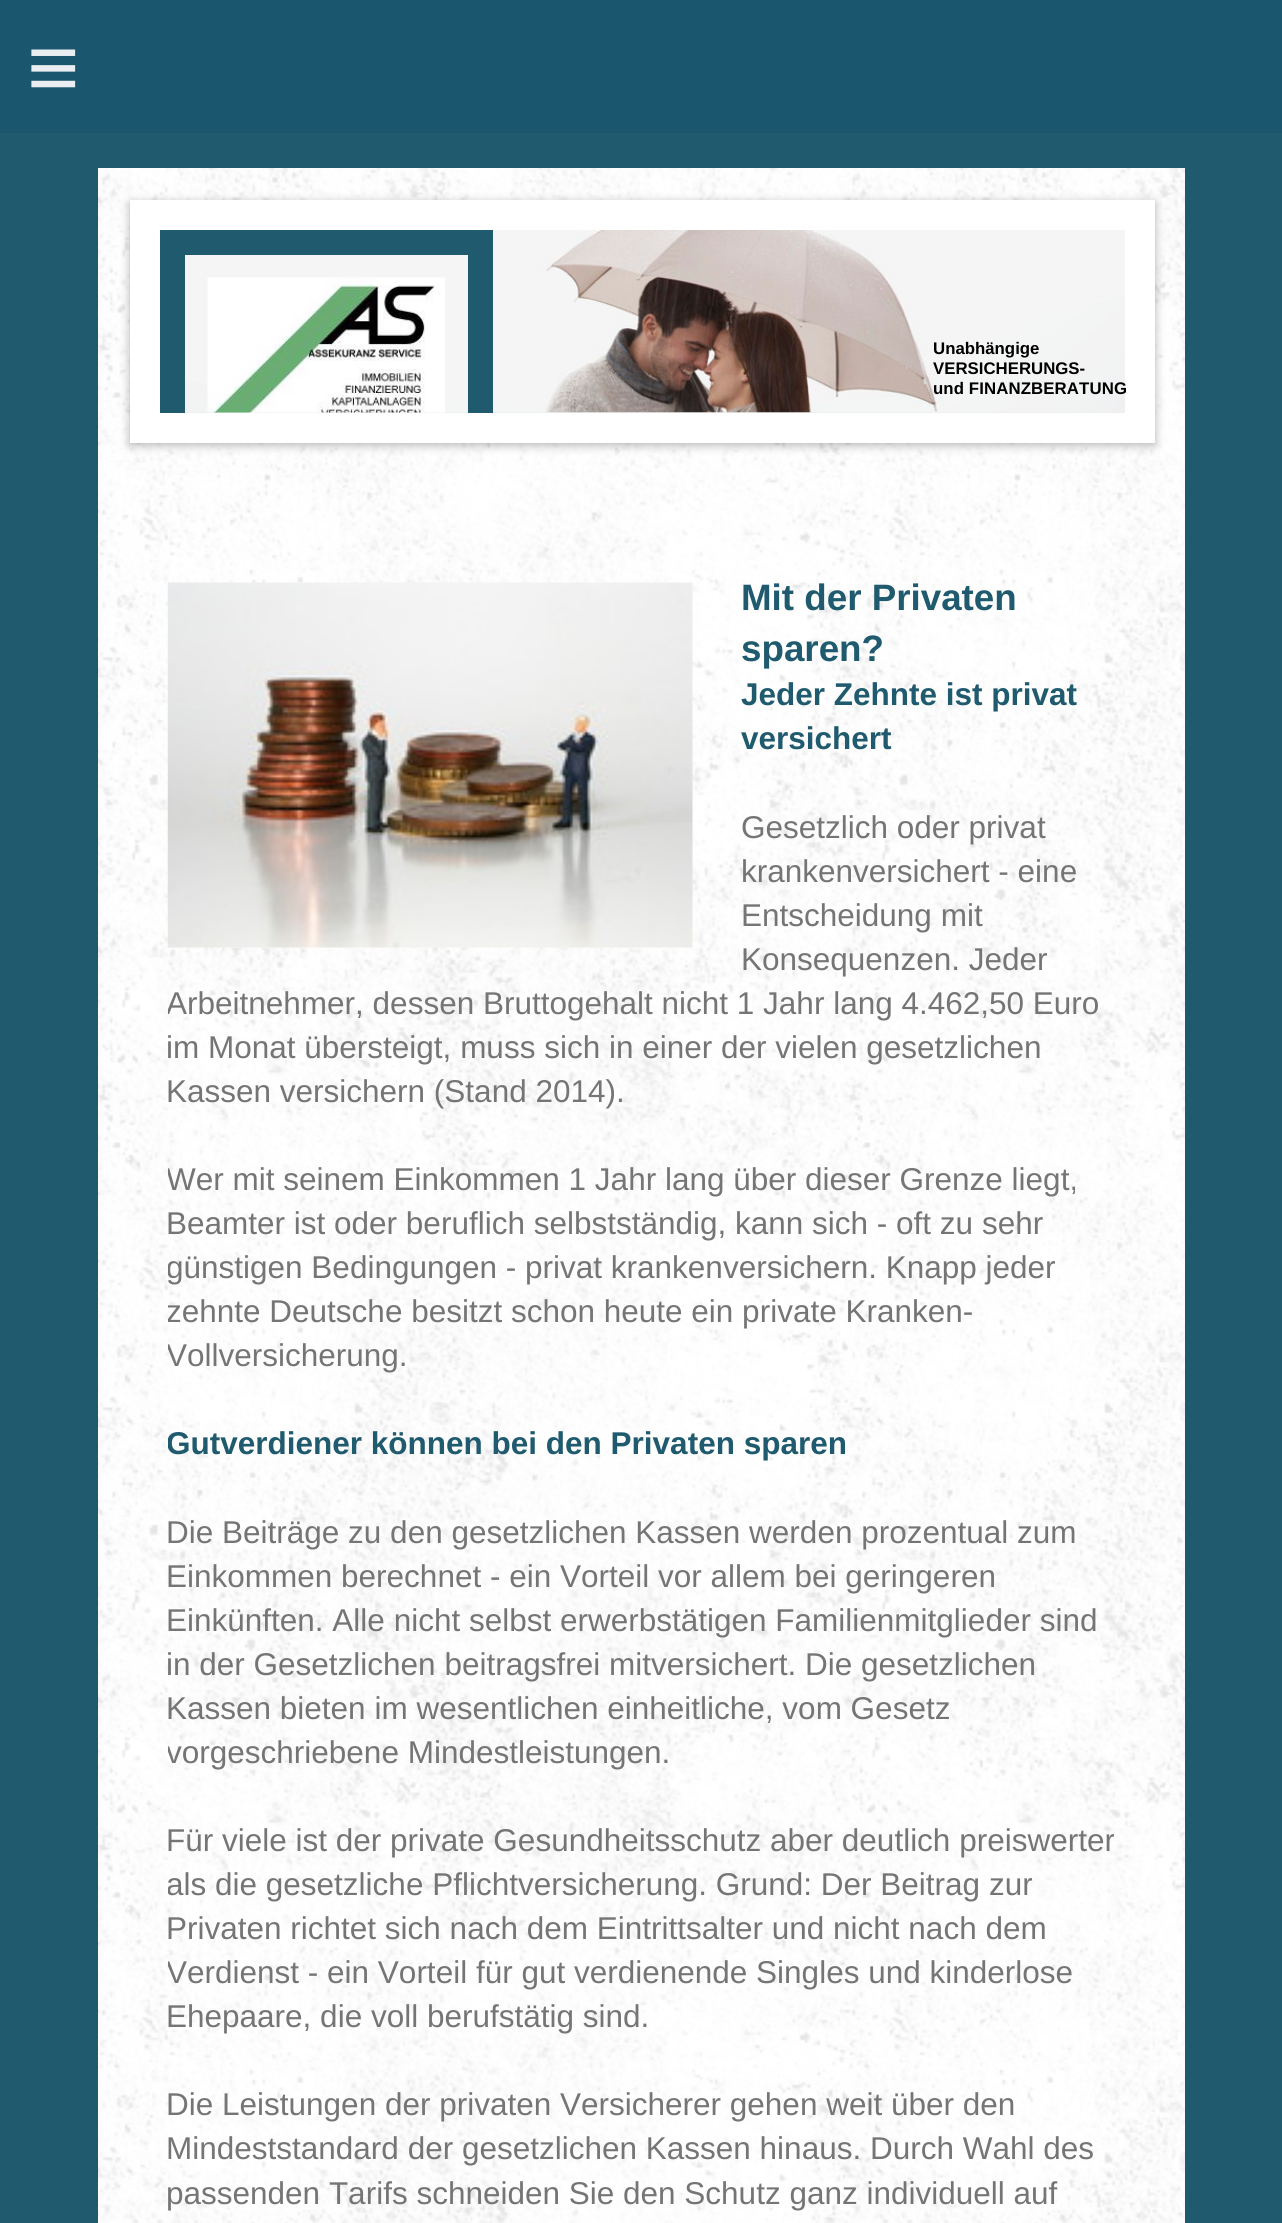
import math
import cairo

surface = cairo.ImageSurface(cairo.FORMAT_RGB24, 1282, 2223)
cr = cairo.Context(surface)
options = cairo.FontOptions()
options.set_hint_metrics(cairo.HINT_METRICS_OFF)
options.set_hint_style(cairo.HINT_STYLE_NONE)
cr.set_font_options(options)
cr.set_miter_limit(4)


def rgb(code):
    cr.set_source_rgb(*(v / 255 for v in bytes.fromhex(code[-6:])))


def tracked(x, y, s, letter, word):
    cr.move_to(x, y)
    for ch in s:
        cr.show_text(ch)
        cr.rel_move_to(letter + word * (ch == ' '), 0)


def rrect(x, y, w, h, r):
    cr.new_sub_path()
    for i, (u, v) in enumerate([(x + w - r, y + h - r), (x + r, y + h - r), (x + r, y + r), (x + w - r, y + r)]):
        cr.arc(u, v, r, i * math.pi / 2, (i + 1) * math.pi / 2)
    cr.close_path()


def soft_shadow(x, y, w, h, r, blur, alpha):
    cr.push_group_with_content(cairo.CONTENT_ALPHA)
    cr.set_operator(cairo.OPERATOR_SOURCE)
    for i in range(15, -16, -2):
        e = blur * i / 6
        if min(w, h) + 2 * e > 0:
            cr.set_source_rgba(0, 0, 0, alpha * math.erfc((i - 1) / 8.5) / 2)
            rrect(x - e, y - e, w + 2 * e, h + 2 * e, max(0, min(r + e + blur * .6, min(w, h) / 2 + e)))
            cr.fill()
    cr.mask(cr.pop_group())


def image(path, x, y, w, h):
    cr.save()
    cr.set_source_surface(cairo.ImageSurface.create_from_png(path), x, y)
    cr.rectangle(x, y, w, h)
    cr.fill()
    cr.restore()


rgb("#1f5a6e")
cr.paint()
rgb("#1a566e")
cr.rectangle(0, 0, 1282, 133)
cr.fill()
rgb("#ffffff")
cr.rectangle(98, 168, 1087, 2055)
cr.fill()
image("img/1.png", 97, 168, 1088, 2055)
rgb("#000000")
soft_shadow(130, 203, 1025, 242, 0, 5, 0.3)
cr.rectangle(145, 215, 995, 213)
rgb("#ffffff")
cr.set_line_width(30)
cr.stroke()
rgb("#eeeeee")
cr.rectangle(185, 412, 940, 1)
cr.fill()
image("img/3.png", 185, 230, 940, 183)
cr.save()
cr.rectangle(160, 230, 965, 183)
cr.clip()
cr.rectangle(172.5, 242.5, 308, 213)
rgb("#1f5a6e")
cr.set_line_width(25)
cr.stroke()
cr.restore()
image("img/2.png", 207, 277, 238, 136)
image("img/4.png", 167, 582, 526, 366)
cr.select_font_face("Liberation Sans")
cr.set_font_size(90)
rgb("#e8eef1")
tracked(27, 98, "≡", 26, 0)
cr.select_font_face("Liberation Sans", cairo.FONT_SLANT_NORMAL, cairo.FONT_WEIGHT_BOLD)
cr.set_font_size(16.8)
rgb("#000000")
cr.move_to(933, 354)
cr.show_text("Unabhängige")
cr.move_to(933, 374)
cr.show_text("VERSICHERUNGS-")
tracked(933, 394, "und FINANZBERATUNG", 0.1, 0)
cr.set_font_size(36.75)
rgb("#1f5a6e")
cr.move_to(741, 610)
cr.show_text("Mit der Privaten")
cr.move_to(741, 661)
cr.show_text("sparen?")
cr.set_font_size(31.5)
cr.move_to(741, 705)
cr.show_text("Jeder Zehnte ist privat")
cr.move_to(741, 749)
cr.show_text("versichert")
cr.select_font_face("Liberation Sans")
rgb("#757575")
for x, y, s in [
    (741, 838, "Gesetzlich oder privat"),
    (741, 882, "krankenversichert - eine"),
    (741, 926, "Entscheidung mit"),
    (741, 970, "Konsequenzen. Jeder"),
]:
    cr.move_to(x, y)
    cr.show_text(s)
cr.save()
cr.rectangle(168, 573, 950, 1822)
cr.clip()
cr.move_to(166, 1014)
cr.show_text("Arbeitnehmer, dessen Bruttogehalt nicht 1 Jahr lang 4.462,50 Euro")
cr.restore()
cr.move_to(166, 1058)
cr.show_text("im Monat übersteigt, muss sich in einer der vielen gesetzlichen")
cr.move_to(166, 1102)
cr.show_text("Kassen versichern (Stand 2014).")
cr.save()
cr.rectangle(168, 573, 950, 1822)
cr.clip()
cr.move_to(166, 1190)
cr.show_text("Wer mit seinem Einkommen 1 Jahr lang über dieser Grenze liegt,")
cr.restore()
cr.move_to(166, 1234)
cr.show_text("Beamter ist oder beruflich selbstständig, kann sich - oft zu sehr")
cr.save()
cr.rectangle(168, 573, 950, 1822)
cr.clip()
for x, y, s in [
    (166, 1278, "günstigen Bedingungen - privat krankenversichern. Knapp jeder"),
    (166, 1322, "zehnte Deutsche besitzt schon heute ein private Kranken-"),
    (166, 1366, "Vollversicherung."),
]:
    cr.move_to(x, y)
    cr.show_text(s)
cr.select_font_face("Liberation Sans", cairo.FONT_SLANT_NORMAL, cairo.FONT_WEIGHT_BOLD)
rgb("#1f5a6e")
cr.move_to(166, 1454)
cr.show_text("Gutverdiener können bei den Privaten sparen")
cr.restore()
for x, y, s in [
    (166, 1543, "Die Beiträge zu den gesetzlichen Kassen werden prozentual zum"),
    (166, 1587, "Einkommen berechnet - ein Vorteil vor allem bei geringeren"),
    (166, 1631, "Einkünften. Alle nicht selbst erwerbstätigen Familienmitglieder sind"),
    (166, 1675, "in der Gesetzlichen beitragsfrei mitversichert. Die gesetzlichen"),
    (166, 1719, "Kassen bieten im wesentlichen einheitliche, vom Gesetz"),
]:
    cr.move_to(x, y)
    cr.show_text(s)
cr.save()
cr.rectangle(168, 573, 950, 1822)
cr.clip()
cr.move_to(166, 1763)
cr.show_text("vorgeschriebene Mindestleistungen.")
cr.restore()
cr.move_to(166, 1851)
cr.show_text("Für viele ist der private Gesundheitsschutz aber deutlich preiswerter")
cr.save()
cr.rectangle(168, 573, 950, 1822)
cr.clip()
cr.move_to(166, 1895)
cr.show_text("als die gesetzliche Pflichtversicherung. Grund: Der Beitrag zur")
cr.restore()
cr.move_to(166, 1939)
cr.show_text("Privaten richtet sich nach dem Eintrittsalter und nicht nach dem")
cr.save()
cr.rectangle(168, 573, 950, 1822)
cr.clip()
cr.move_to(166, 1983)
cr.show_text("Verdienst - ein Vorteil für gut verdienende Singles und kinderlose")
cr.restore()
for x, y, s in [
    (166, 2027, "Ehepaare, die voll berufstätig sind."),
    (166, 2115, "Die Leistungen der privaten Versicherer gehen weit über den"),
    (166, 2159, "Mindeststandard der gesetzlichen Kassen hinaus. Durch Wahl des"),
    (166, 2204, "passenden Tarifs schneiden Sie den Schutz ganz individuell auf"),
]:
    cr.move_to(x, y)
    cr.show_text(s)
surface.write_to_png("page.png")
